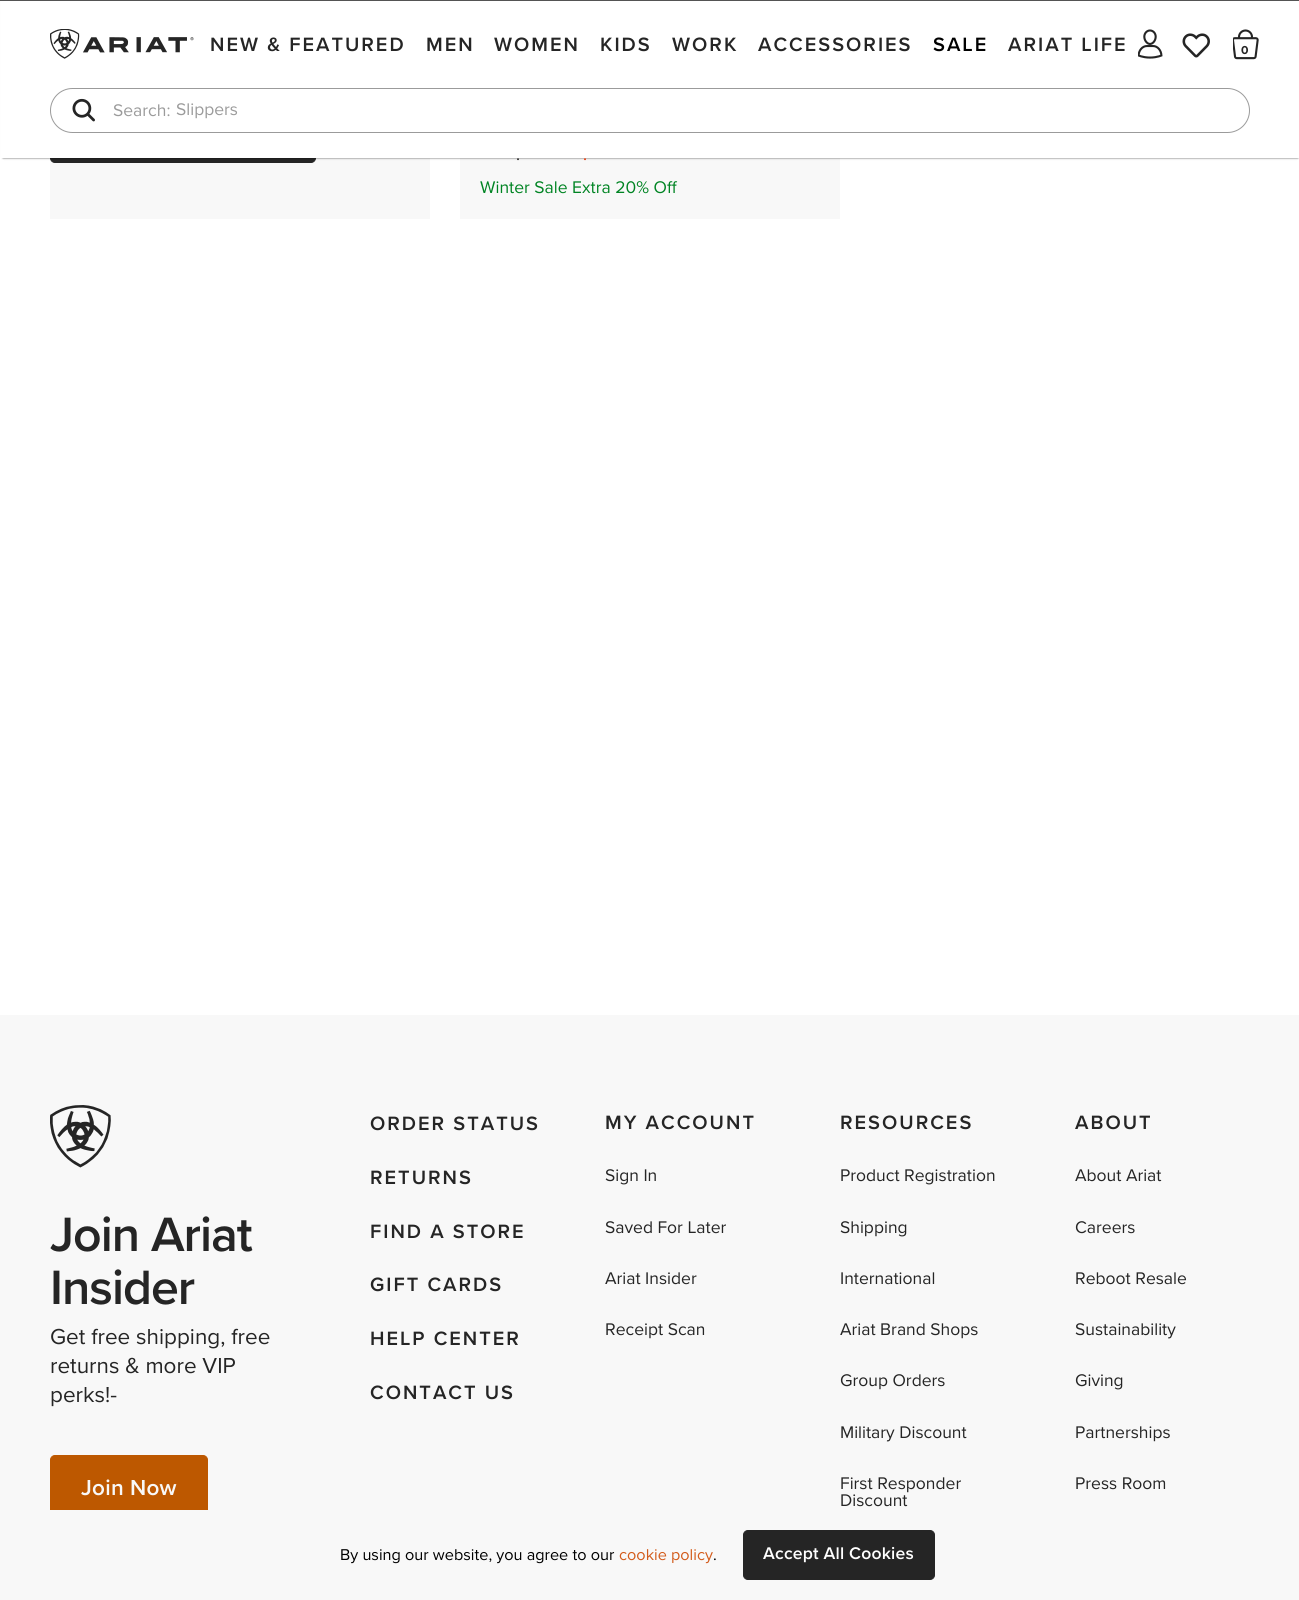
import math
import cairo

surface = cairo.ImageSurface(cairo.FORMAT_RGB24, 1299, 1600)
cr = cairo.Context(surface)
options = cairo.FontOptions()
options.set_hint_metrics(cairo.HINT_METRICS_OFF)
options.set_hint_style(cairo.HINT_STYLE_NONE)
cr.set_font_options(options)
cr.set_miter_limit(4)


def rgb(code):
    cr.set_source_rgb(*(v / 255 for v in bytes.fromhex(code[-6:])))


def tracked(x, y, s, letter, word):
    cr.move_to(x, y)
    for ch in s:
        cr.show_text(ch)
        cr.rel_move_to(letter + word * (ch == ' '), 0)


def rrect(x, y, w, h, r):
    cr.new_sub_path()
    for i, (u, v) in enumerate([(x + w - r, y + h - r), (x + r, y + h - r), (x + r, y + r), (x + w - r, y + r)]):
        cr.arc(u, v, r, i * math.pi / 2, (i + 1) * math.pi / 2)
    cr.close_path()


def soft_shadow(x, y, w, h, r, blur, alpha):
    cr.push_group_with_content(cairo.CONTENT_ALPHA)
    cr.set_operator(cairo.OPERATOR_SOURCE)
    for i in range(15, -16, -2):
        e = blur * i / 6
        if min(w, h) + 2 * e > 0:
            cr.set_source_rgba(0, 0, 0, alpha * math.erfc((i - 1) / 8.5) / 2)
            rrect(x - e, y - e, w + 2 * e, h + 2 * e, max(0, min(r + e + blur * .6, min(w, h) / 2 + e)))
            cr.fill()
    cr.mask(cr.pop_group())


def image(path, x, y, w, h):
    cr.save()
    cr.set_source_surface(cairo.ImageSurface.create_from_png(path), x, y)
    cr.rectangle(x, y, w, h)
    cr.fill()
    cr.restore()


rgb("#ffffff")
cr.paint()
rgb("#f8f8f8")
cr.rectangle(50, 158, 380, 61)
cr.fill()
rgb("#252525")
rrect(50.5, 106.5, 265, 56, 4.5)
cr.fill_preserve()
cr.set_line_width(1)
cr.stroke()
rgb("#f8f8f8")
cr.rectangle(460, 158, 380, 61)
cr.fill()
rgb("#000000")
soft_shadow(3, -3, 1295, 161, 0, 1, 0.65)
rgb("#545454")
cr.rectangle(0, 0, 1299, 1)
cr.fill()
rgb("#ffffff")
cr.rectangle(1, 1, 1298, 157)
cr.fill()
image("img/1.png", 50, 29, 144, 30)
image("img/2.png", 1138, 29, 25, 30)
image("img/3.png", 1182, 33, 28, 25)
image("img/4.png", 1233, 29, 26, 31)
rrect(50.5, 88.5, 1199, 44, 22)
rgb("#9b9b9b")
cr.stroke()
image("img/5.png", 72, 98, 23, 24)
rgb("#f8f8f8")
cr.rectangle(0, 1015, 1299, 495)
cr.fill()
image("img/6.png", 50, 1105, 61, 63)
rgb("#bd5800")
rrect(50.5, 1455.5, 157, 64, 4.5)
cr.fill_preserve()
cr.stroke()
rgb("#f8f8f8")
cr.rectangle(0, 1510, 1299, 90)
cr.fill()
rgb("#252525")
rrect(743.5, 1530.5, 191, 49, 4.5)
cr.fill_preserve()
cr.stroke()
cr.select_font_face("Proxima Nova SemiBold")
cr.set_font_size(20)
for x, y, s in [
    (210, 51, "NEW & FEATURED"),
    (426, 51, "MEN"),
    (494, 51, "WOMEN"),
    (600, 51, "KIDS"),
    (672, 51, "WORK"),
    (758, 51, "ACCESSORIES"),
]:
    tracked(x, y, s, 2, 0)
rgb("#000000")
tracked(933, 51, "SALE", 2, 0)
rgb("#252525")
tracked(1008, 51, "ARIAT LIFE", 2, 0)
cr.select_font_face("Proxima Nova", cairo.FONT_SLANT_NORMAL, cairo.FONT_WEIGHT_BOLD)
cr.set_font_size(12)
tracked(1241, 54, "0", 1, 0)
cr.select_font_face("Proxima Nova")
cr.set_font_size(17.5)
rgb("#9b9b9b")
cr.move_to(113, 116)
cr.show_text("Search:")
cr.move_to(176, 115)
cr.show_text("Slippers")
rgb("#252525")
cr.move_to(516, 160)
cr.show_text(".")
rgb("#eb3300")
cr.move_to(583, 160)
cr.show_text(".")
rgb("#008423")
cr.move_to(480, 193)
cr.show_text("Winter Sale Extra 20% Off")
cr.select_font_face("Proxima Nova SemiBold")
cr.set_font_size(50)
rgb("#252525")
tracked(50, 1251, "Join Ariat", -1, 0)
tracked(50, 1304, "Insider", -1, 0)
cr.select_font_face("Proxima Nova")
cr.set_font_size(22.5)
for x, y, s in [
    (50, 1344, "Get free shipping, free"),
    (50, 1373, "returns & more VIP"),
    (50, 1402, "perks!-"),
]:
    cr.move_to(x, y)
    cr.show_text(s)
cr.select_font_face("Proxima Nova SemiBold")
rgb("#f8f8f8")
tracked(81, 1495, "Join Now", 0.25, 0)
cr.set_font_size(20)
rgb("#252525")
for x, y, s in [
    (370, 1130, "ORDER STATUS"),
    (370, 1184, "RETURNS"),
    (370, 1238, "FIND A STORE"),
    (370, 1291, "GIFT CARDS"),
    (370, 1345, "HELP CENTER"),
    (370, 1399, "CONTACT US"),
    (605, 1129, "MY ACCOUNT"),
]:
    tracked(x, y, s, 2, 0)
cr.select_font_face("Proxima Nova")
cr.set_font_size(17.5)
for x, y, s in [
    (605, 1181, "Sign In"),
    (605, 1233, "Saved For Later"),
    (605, 1284, "Ariat Insider"),
    (605, 1335, "Receipt Scan"),
]:
    cr.move_to(x, y)
    cr.show_text(s)
cr.select_font_face("Proxima Nova SemiBold")
cr.set_font_size(20)
tracked(840, 1129, "RESOURCES", 2, 0)
cr.select_font_face("Proxima Nova")
cr.set_font_size(17.5)
for x, y, s in [
    (840, 1181, "Product Registration"),
    (840, 1233, "Shipping"),
    (840, 1284, "International"),
    (840, 1335, "Ariat Brand Shops"),
    (840, 1386, "Group Orders"),
    (840, 1438, "Military Discount"),
    (840, 1489, "First Responder"),
    (840, 1506, "Discount"),
]:
    cr.move_to(x, y)
    cr.show_text(s)
cr.select_font_face("Proxima Nova SemiBold")
cr.set_font_size(20)
tracked(1075, 1129, "ABOUT", 2, 0)
cr.select_font_face("Proxima Nova")
cr.set_font_size(17.5)
for x, y, s in [
    (1075, 1181, "About Ariat"),
    (1075, 1233, "Careers"),
    (1075, 1284, "Reboot Resale"),
    (1075, 1335, "Sustainability"),
    (1075, 1386, "Giving"),
    (1075, 1438, "Partnerships"),
    (1075, 1489, "Press Room"),
]:
    cr.move_to(x, y)
    cr.show_text(s)
cr.set_font_size(16.25)
rgb("#000000")
cr.move_to(340, 1560)
cr.show_text("By using our website, you agree to our")
rgb("#d35c1c")
cr.move_to(619, 1560)
cr.show_text("cookie policy")
rgb("#000000")
cr.move_to(713, 1560)
cr.show_text(".")
cr.select_font_face("Proxima Nova SemiBold")
cr.set_font_size(17.5)
rgb("#ffffff")
tracked(763, 1559, "Accept All Cookies", 0.2, 0)
surface.write_to_png("page.png")
